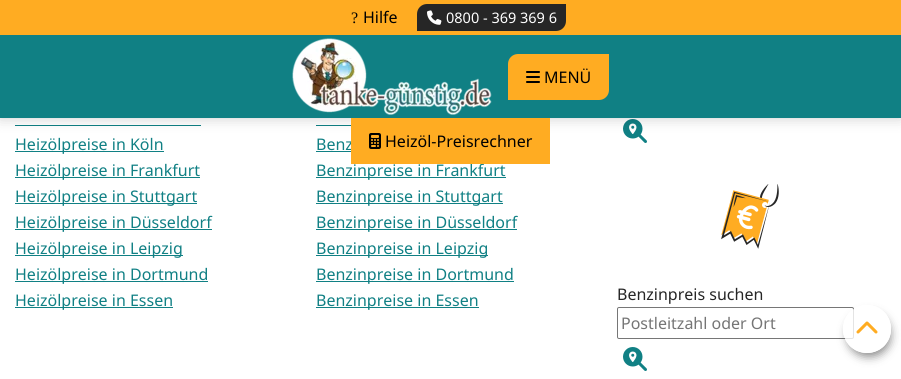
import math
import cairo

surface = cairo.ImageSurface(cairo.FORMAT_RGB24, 901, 379)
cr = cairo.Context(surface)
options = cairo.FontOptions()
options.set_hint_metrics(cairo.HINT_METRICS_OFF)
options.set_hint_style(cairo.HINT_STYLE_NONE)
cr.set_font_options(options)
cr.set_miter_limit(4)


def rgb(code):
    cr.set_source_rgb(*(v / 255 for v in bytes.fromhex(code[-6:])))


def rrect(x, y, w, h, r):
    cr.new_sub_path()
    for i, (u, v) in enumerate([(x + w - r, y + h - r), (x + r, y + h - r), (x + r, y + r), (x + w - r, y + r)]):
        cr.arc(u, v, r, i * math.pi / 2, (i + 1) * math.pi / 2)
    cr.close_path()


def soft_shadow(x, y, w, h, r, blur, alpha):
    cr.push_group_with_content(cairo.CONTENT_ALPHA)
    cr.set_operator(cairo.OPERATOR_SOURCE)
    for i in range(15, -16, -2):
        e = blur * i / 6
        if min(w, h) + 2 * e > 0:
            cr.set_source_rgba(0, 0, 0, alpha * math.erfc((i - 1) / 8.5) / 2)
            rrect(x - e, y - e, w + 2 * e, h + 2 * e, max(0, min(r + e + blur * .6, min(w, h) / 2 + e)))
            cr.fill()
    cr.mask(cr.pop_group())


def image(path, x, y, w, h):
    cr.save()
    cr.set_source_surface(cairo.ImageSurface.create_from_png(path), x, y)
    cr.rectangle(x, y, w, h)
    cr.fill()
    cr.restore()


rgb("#ffffff")
cr.paint()
rgb("#108084")
cr.rectangle(15, 125, 186, 1)
cr.fill()
cr.rectangle(316, 125, 35, 1)
cr.fill()
image("img/5.png", 623, 119, 24, 24)
rgb("#000000")
soft_shadow(0, 0, 901, 118, 0, 7, 0.2)
rgb("#ffac22")
cr.rectangle(0, 0, 901, 35)
cr.fill()
rgb("#262626")
cr.new_path()
cr.move_to(427, 5)
cr.line_to(565, 5)
cr.line_to(565, 21)
cr.curve_to(565, 26, 561, 30, 556, 30)
cr.line_to(418, 30)
cr.line_to(418, 14)
cr.curve_to(418, 9, 422, 5, 427, 5)
cr.close_path()
cr.fill_preserve()
cr.stroke()
image("img/1.png", 427, 10, 15, 15)
rgb("#108084")
cr.rectangle(0, 35, 901, 83)
cr.fill()
image("img/2.png", 292, 38, 200, 77)
rgb("#ffac22")
cr.new_path()
cr.move_to(518, 55)
cr.line_to(608, 55)
cr.line_to(608, 90)
cr.curve_to(608, 95, 604, 99, 599, 99)
cr.line_to(509, 99)
cr.line_to(509, 64)
cr.curve_to(509, 59, 513, 55, 518, 55)
cr.close_path()
cr.fill_preserve()
cr.stroke()
image("img/3.png", 526, 71, 14, 12)
for x, y, w, h, color in [
    (15, 151, 149, 1, "#108084"),
    (15, 177, 185, 1, "#108084"),
    (15, 203, 182, 1, "#108084"),
    (15, 229, 197, 1, "#108084"),
    (15, 255, 168, 1, "#108084"),
    (15, 281, 193, 1, "#108084"),
    (15, 307, 158, 1, "#108084"),
    (316, 151, 35, 1, "#108084"),
    (316, 177, 190, 1, "#108084"),
    (316, 203, 187, 1, "#108084"),
    (316, 229, 201, 1, "#108084"),
    (316, 255, 172, 1, "#108084"),
    (316, 281, 198, 1, "#108084"),
    (316, 307, 163, 1, "#108084"),
]:
    rgb(color)
    cr.rectangle(x, y, w, h)
    cr.fill()
image("img/6.png", 721, 184, 58, 65)
rrect(617.5, 307.5, 236, 31, 1.5)
rgb("#767676")
cr.set_line_width(1)
cr.stroke()
image("img/5.png", 623, 347, 24, 24)
cr.save()
cr.set_fill_rule(cairo.FILL_RULE_EVEN_ODD)
cr.new_path()
cr.move_to(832, 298)
cr.line_to(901, 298)
cr.line_to(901, 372)
cr.line_to(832, 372)
cr.close_path()
cr.move_to(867, 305)
cr.curve_to(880.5, 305, 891, 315.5, 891, 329)
cr.curve_to(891, 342.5, 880.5, 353, 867, 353)
cr.curve_to(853.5, 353, 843, 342.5, 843, 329)
cr.curve_to(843, 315.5, 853.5, 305, 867, 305)
cr.close_path()
cr.clip()
rgb("#000000")
soft_shadow(848, 314, 42, 42, 21, 5, 0.5)
cr.restore()
cr.set_source_rgba(1, 1, 1, 0.8)
cr.arc(867, 329, 24, 0, 2 * math.pi)
cr.fill()
image("img/7.png", 856, 321, 22, 13)
cr.select_font_face("Liberation Serif")
cr.set_font_size(16)
rgb("#000000")
cr.move_to(351, 23)
cr.show_text("?")
cr.select_font_face("Noto Sans")
cr.move_to(363, 23)
cr.show_text("Hilfe")
cr.set_font_size(14.5)
rgb("#ffffff")
cr.move_to(446, 23)
cr.show_text("0800 - 369 369 6")
cr.set_font_size(16)
rgb("#000000")
cr.move_to(544, 83)
cr.show_text("MENÜ")
rgb("#108084")
for x, y, s in [
    (15, 150, "Heizölpreise in Köln"),
    (15, 176, "Heizölpreise in Frankfurt"),
    (15, 202, "Heizölpreise in Stuttgart"),
    (15, 228, "Heizölpreise in Düsseldorf"),
    (15, 254, "Heizölpreise in Leipzig"),
    (15, 280, "Heizölpreise in Dortmund"),
    (15, 306, "Heizölpreise in Essen"),
    (316, 150, "Benz"),
    (316, 176, "Benzinpreise in Frankfurt"),
]:
    cr.move_to(x, y)
    cr.show_text(s)
rgb("#ffac22")
cr.rectangle(351, 118, 199, 46)
cr.fill()
rgb("#000000")
cr.move_to(385, 147)
cr.show_text("Heizöl-Preisrechner")
image("img/4.png", 369, 133, 12, 16)
rgb("#108084")
for x, y, s in [
    (316, 202, "Benzinpreise in Stuttgart"),
    (316, 228, "Benzinpreise in Düsseldorf"),
    (316, 254, "Benzinpreise in Leipzig"),
    (316, 280, "Benzinpreise in Dortmund"),
    (316, 306, "Benzinpreise in Essen"),
]:
    cr.move_to(x, y)
    cr.show_text(s)
rgb("#262626")
cr.move_to(617, 300)
cr.show_text("Benzinpreis suchen")
rgb("#757575")
cr.move_to(621, 329)
cr.show_text("Postleitzahl oder Ort")
surface.write_to_png("page.png")
